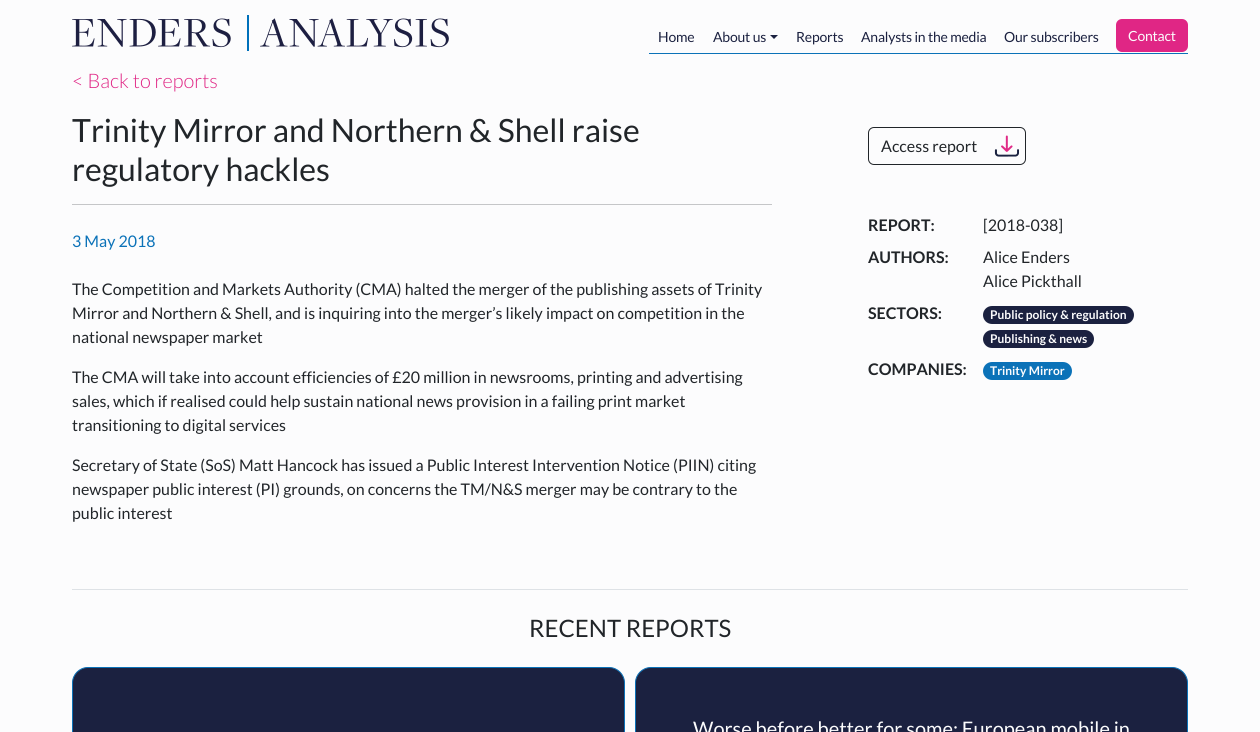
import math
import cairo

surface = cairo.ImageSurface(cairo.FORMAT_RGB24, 1260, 732)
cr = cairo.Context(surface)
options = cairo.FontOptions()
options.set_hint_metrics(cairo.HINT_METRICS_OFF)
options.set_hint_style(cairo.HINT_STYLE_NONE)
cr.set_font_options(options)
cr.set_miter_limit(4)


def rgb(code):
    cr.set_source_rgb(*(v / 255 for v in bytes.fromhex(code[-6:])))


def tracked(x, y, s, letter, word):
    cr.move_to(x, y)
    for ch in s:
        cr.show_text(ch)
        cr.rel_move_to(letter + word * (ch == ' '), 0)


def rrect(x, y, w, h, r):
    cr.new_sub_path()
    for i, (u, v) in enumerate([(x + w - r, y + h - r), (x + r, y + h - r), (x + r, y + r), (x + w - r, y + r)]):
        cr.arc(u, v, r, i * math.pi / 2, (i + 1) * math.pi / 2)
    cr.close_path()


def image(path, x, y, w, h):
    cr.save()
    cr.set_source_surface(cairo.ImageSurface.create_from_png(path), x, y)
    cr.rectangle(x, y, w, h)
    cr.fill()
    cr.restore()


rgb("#fcfcfd")
cr.paint()
image("img/1.png", 72, 15, 377, 36)
rgb("#0b72b8")
cr.rectangle(649, 53, 539, 1)
cr.fill()
rgb("#1b2140")
cr.new_path()
cr.move_to(770, 35)
cr.line_to(778, 35)
cr.line_to(774, 39)
cr.close_path()
cr.fill()
rgb("#e02685")
rrect(1116, 19, 72, 33, 6)
cr.fill()
rgb("#c5c6c8")
cr.rectangle(72, 204, 700, 1)
cr.fill()
image("img/2.png", 994, 135, 25, 22)
rrect(868.5, 127.5, 157, 37, 5.5)
rgb("#212529")
cr.set_line_width(1)
cr.stroke()
rgb("#1b2140")
rrect(983, 306, 151, 18, 9)
cr.fill()
rrect(983, 330, 111, 18, 9)
cr.fill()
rgb("#0b72b8")
rrect(983, 362, 89, 18, 9)
cr.fill()
rgb("#dee2e6")
cr.rectangle(72, 589, 1116, 1)
cr.fill()
rgb("#1b2140")
rrect(72.5, 667.5, 552, 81, 15.5)
cr.fill_preserve()
rgb("#0b72b8")
cr.stroke()
rgb("#1b2140")
rrect(635.5, 667.5, 552, 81, 15.5)
cr.fill_preserve()
rgb("#0b72b8")
cr.stroke()
cr.select_font_face("Lato")
cr.set_font_size(14)
rgb("#1b2140")
for x, y, s in [
    (658, 42, "Home"),
    (713, 42, "About us"),
    (796, 42, "Reports"),
    (861, 42, "Analysts in the media"),
    (1004, 42, "Our subscribers"),
]:
    tracked(x, y, s, -0.2, 0)
rgb("#fcfcfd")
tracked(1128, 41, "Contact", -0.2, 0)
cr.select_font_face("Lato Light")
cr.set_font_size(20)
rgb("#e02685")
cr.move_to(72, 88)
cr.show_text("< Back to reports")
cr.select_font_face("Lato")
cr.set_font_size(32)
rgb("#212529")
cr.move_to(72, 142)
cr.show_text("Trinity Mirror and Northern & Shell raise")
cr.move_to(72, 181)
cr.show_text("regulatory hackles")
cr.set_font_size(16)
rgb("#0b72b8")
cr.move_to(72, 247)
cr.show_text("3 May 2018")
rgb("#212529")
for x, y, s in [
    (72, 295, "The Competition and Markets Authority (CMA) halted the merger of the publishing assets of Trinity"),
    (72, 319, "Mirror and Northern & Shell, and is inquiring into the merger’s likely impact on competition in the"),
    (72, 343, "national newspaper market"),
    (72, 383, "The CMA will take into account efficiencies of £20 million in newsrooms, printing and advertising"),
    (72, 407, "sales, which if realised could help sustain national news provision in a failing print market"),
    (72, 431, "transitioning to digital services"),
    (72, 471, "Secretary of State (SoS) Matt Hancock has issued a Public Interest Intervention Notice (PIIN) citing"),
    (72, 495, "newspaper public interest (PI) grounds, on concerns the TM/N&S merger may be contrary to the"),
    (72, 519, "public interest"),
    (881, 152, "Access report"),
]:
    cr.move_to(x, y)
    cr.show_text(s)
cr.select_font_face("Lato", cairo.FONT_SLANT_NORMAL, cairo.FONT_WEIGHT_BOLD)
cr.move_to(868, 231)
cr.show_text("REPORT:")
cr.select_font_face("Lato")
cr.move_to(983, 231)
cr.show_text("[2018-038]")
cr.select_font_face("Lato", cairo.FONT_SLANT_NORMAL, cairo.FONT_WEIGHT_BOLD)
cr.move_to(868, 263)
cr.show_text("AUTHORS:")
cr.select_font_face("Lato")
cr.move_to(983, 263)
cr.show_text("Alice Enders")
cr.move_to(983, 287)
cr.show_text("Alice Pickthall")
cr.select_font_face("Lato", cairo.FONT_SLANT_NORMAL, cairo.FONT_WEIGHT_BOLD)
cr.move_to(868, 319)
cr.show_text("SECTORS:")
cr.set_font_size(12)
rgb("#fcfcfd")
cr.move_to(990, 319)
cr.show_text("Public policy & regulation")
cr.move_to(990, 343)
cr.show_text("Publishing & news")
cr.set_font_size(16)
rgb("#212529")
cr.move_to(868, 375)
cr.show_text("COMPANIES:")
cr.set_font_size(12)
rgb("#fcfcfd")
cr.move_to(990, 375)
cr.show_text("Trinity Mirror")
cr.select_font_face("Lato")
cr.set_font_size(24)
rgb("#212529")
cr.move_to(529, 637)
cr.show_text("RECENT REPORTS")
cr.set_font_size(20)
rgb("#fcfcfd")
cr.move_to(693, 736)
cr.show_text("Worse before better for some: European mobile in")
surface.write_to_png("page.png")
